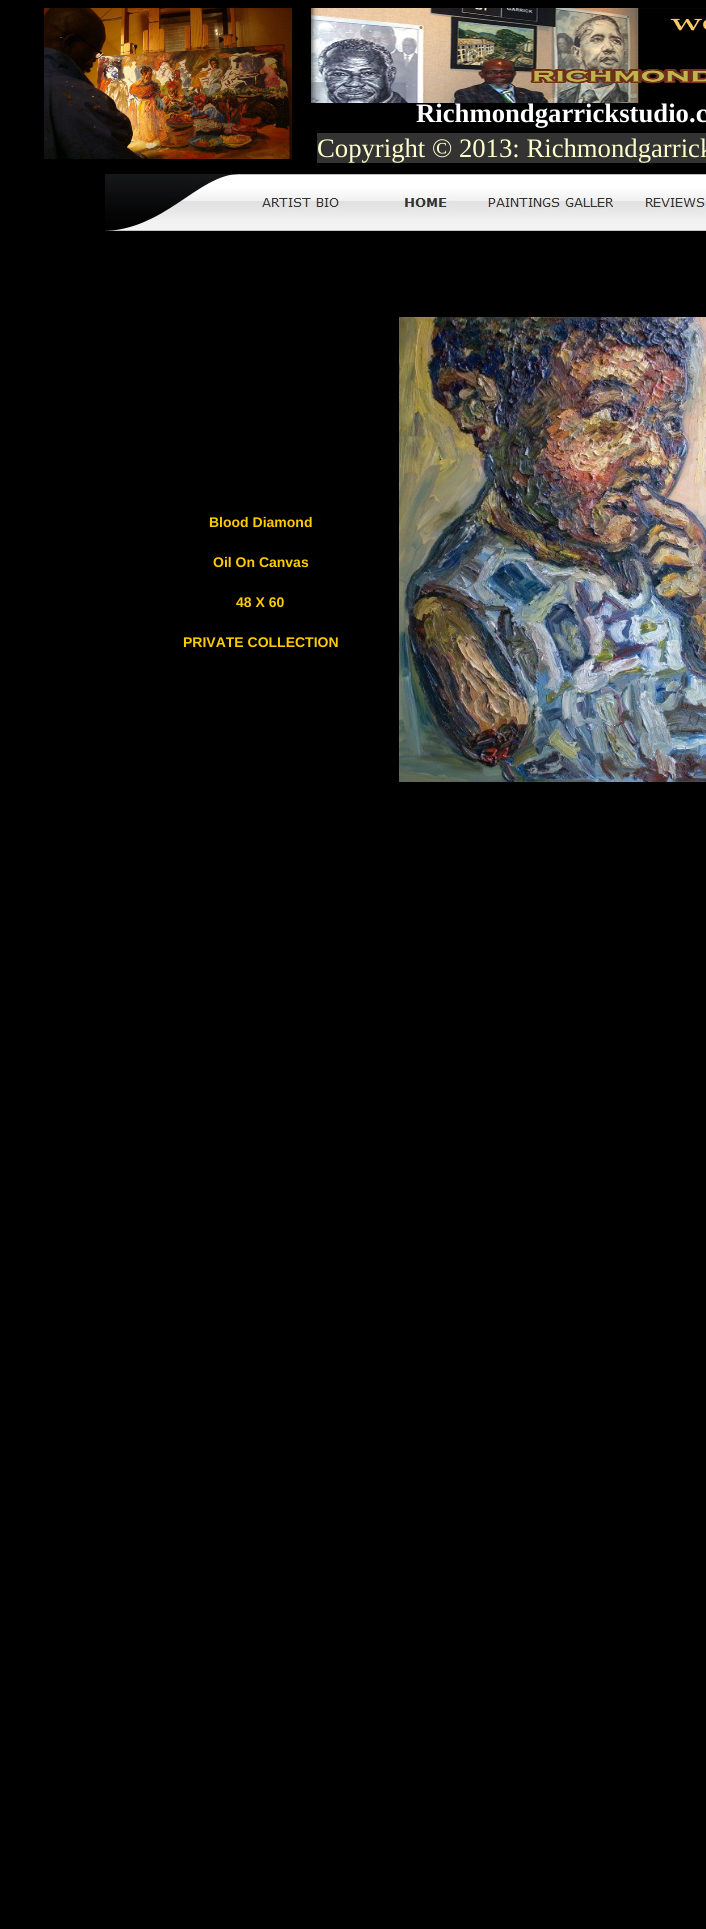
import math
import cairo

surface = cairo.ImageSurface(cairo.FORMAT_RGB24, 706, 1929)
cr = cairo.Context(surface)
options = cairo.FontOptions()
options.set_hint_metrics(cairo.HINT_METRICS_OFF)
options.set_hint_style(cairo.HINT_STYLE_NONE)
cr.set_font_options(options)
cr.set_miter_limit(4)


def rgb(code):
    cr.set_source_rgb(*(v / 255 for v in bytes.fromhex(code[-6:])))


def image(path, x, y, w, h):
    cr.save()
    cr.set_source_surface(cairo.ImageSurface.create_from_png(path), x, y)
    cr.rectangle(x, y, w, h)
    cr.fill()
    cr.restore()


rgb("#000000")
cr.paint()
image("img/1.png", 44, 8, 248, 151)
image("img/2.png", 311, 8, 395, 95)
rgb("#333333")
cr.rectangle(317, 133, 389, 30)
cr.fill()
image("img/3.png", 105, 174, 133, 57)
image("img/4.png", 238, 174, 125, 57)
image("img/5.png", 363, 174, 125, 57)
image("img/6.png", 488, 174, 125, 57)
image("img/7.png", 613, 174, 93, 57)
image("img/8.png", 399, 317, 307, 465)
cr.select_font_face("Liberation Serif", cairo.FONT_SLANT_NORMAL, cairo.FONT_WEIGHT_BOLD)
cr.set_font_size(26.7)
rgb("#ffffff")
cr.move_to(416, 122)
cr.show_text("Richmondgarrickstudio.c")
cr.select_font_face("Liberation Serif")
rgb("#ffffcc")
cr.move_to(317, 157)
cr.show_text("Copyright © 2013: Richmondgarrick")
cr.select_font_face("Liberation Sans", cairo.FONT_SLANT_NORMAL, cairo.FONT_WEIGHT_BOLD)
cr.set_font_size(14)
rgb("#ffcc00")
for x, y, s in [
    (209, 527, "Blood Diamond"),
    (213, 567, "Oil On Canvas"),
    (236, 607, "48 X 60"),
    (183, 647, "PRIVATE COLLECTION"),
]:
    cr.move_to(x, y)
    cr.show_text(s)
surface.write_to_png("page.png")
